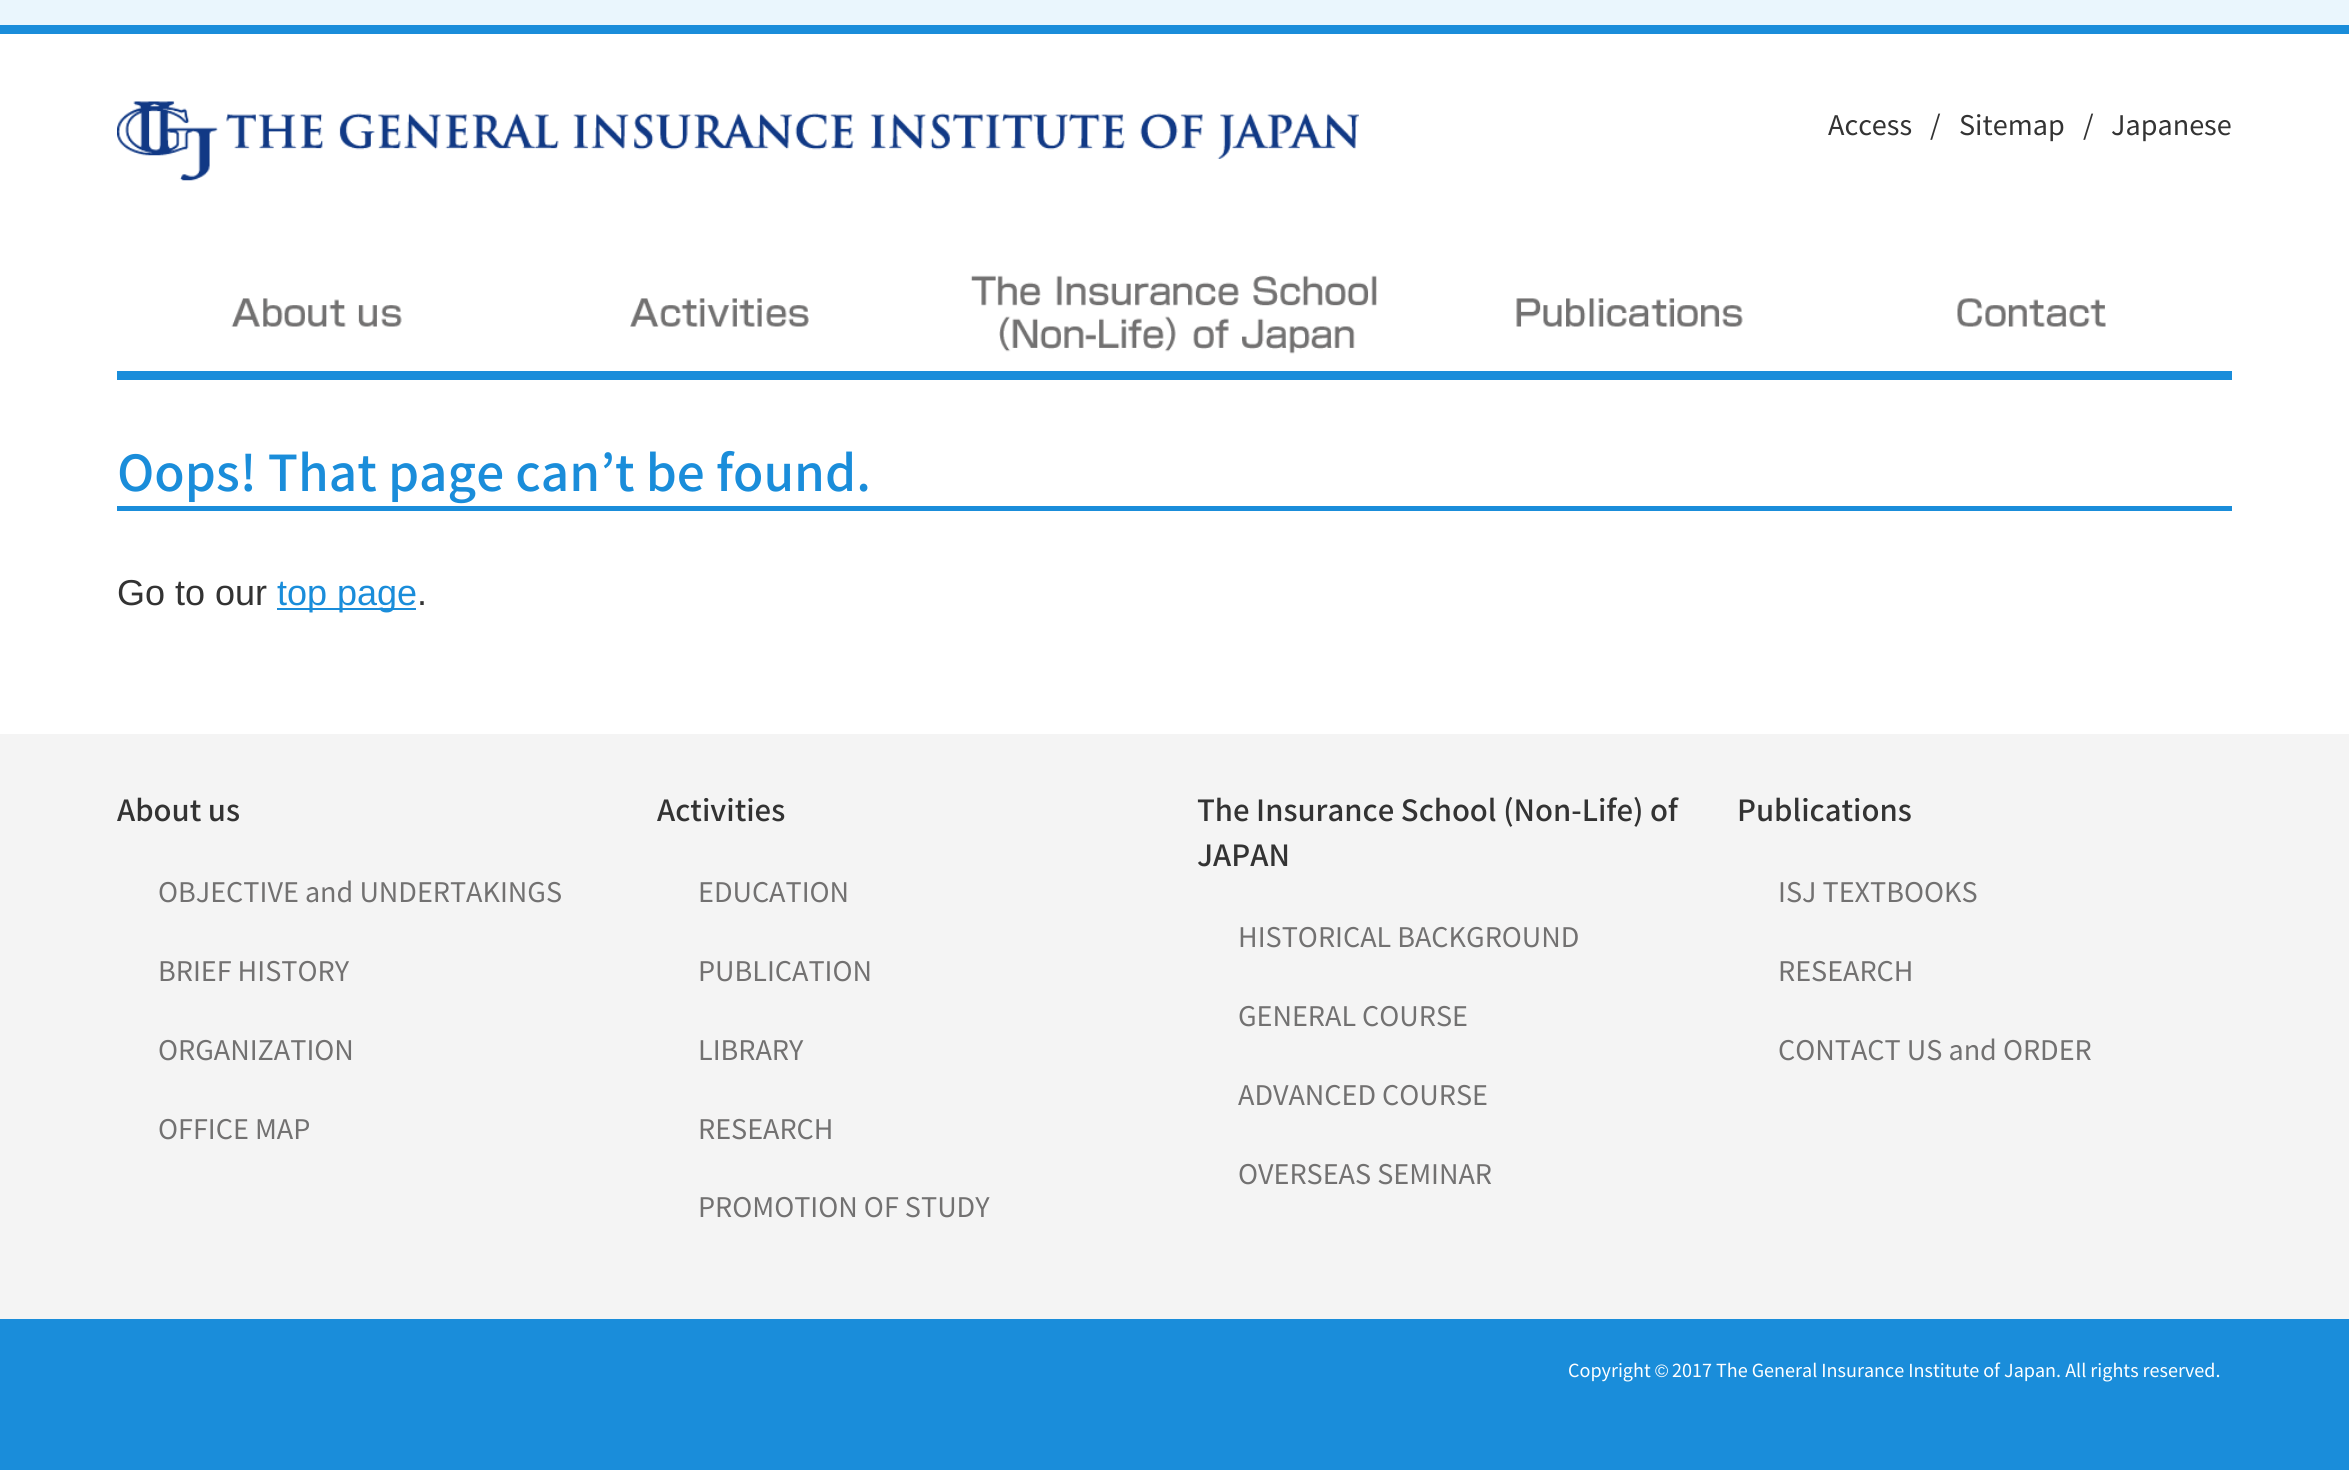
import math
import cairo

surface = cairo.ImageSurface(cairo.FORMAT_RGB24, 2349, 1470)
cr = cairo.Context(surface)
options = cairo.FontOptions()
options.set_hint_metrics(cairo.HINT_METRICS_OFF)
options.set_hint_style(cairo.HINT_STYLE_NONE)
cr.set_font_options(options)
cr.set_miter_limit(4)


def rgb(code):
    cr.set_source_rgb(*(v / 255 for v in bytes.fromhex(code[-6:])))


def image(path, x, y, w, h):
    cr.save()
    cr.set_source_surface(cairo.ImageSurface.create_from_png(path), x, y)
    cr.rectangle(x, y, w, h)
    cr.fill()
    cr.restore()


rgb("#ffffff")
cr.paint()
rgb("#eaf6fd")
cr.rectangle(0, 0, 2349, 25)
cr.fill()
rgb("#1a8dda")
cr.rectangle(0, 25, 2349, 9)
cr.fill()
image("img/1.png", 117, 101, 1242, 80)
image("img/2.png", 970, 275, 407, 79)
image("img/3.png", 231, 298, 171, 29)
cr.rectangle(117, 371, 2115, 9)
cr.fill()
image("img/4.png", 630, 298, 179, 29)
image("img/5.png", 1516, 298, 227, 29)
image("img/6.png", 1957, 298, 149, 29)
for x, y, w, h, color in [
    (117, 506, 2115, 5, "#1a8dda"),
    (277, 608, 139, 2, "#1a8dda"),
    (0, 734, 2349, 585, "#f4f4f4"),
    (0, 1319, 2349, 151, "#1a8dda"),
]:
    rgb(color)
    cr.rectangle(x, y, w, h)
    cr.fill()
cr.select_font_face("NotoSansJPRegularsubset")
cr.set_font_size(27)
rgb("#333333")
for x, y, s in [
    (1828, 135, "Access"),
    (1930, 135, "/"),
    (1959, 135, "Sitemap"),
    (2083, 135, "/"),
    (2111, 135, "Japanese"),
]:
    cr.move_to(x, y)
    cr.show_text(s)
cr.select_font_face("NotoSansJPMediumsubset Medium")
cr.set_font_size(49.5)
rgb("#1a8dda")
cr.move_to(117, 491)
cr.show_text("Oops! That page can’t be found.")
cr.select_font_face("Liberation Sans")
cr.set_font_size(36)
rgb("#333333")
cr.move_to(117, 605)
cr.show_text("Go to our")
rgb("#1a8dda")
cr.move_to(277, 605)
cr.show_text("top page")
rgb("#333333")
cr.move_to(417, 605)
cr.show_text(".")
cr.select_font_face("NotoSansJPMediumsubset Medium")
cr.set_font_size(29.25)
cr.move_to(117, 821)
cr.show_text("About us")
cr.select_font_face("NotoSansJPRegularsubset")
cr.set_font_size(27)
rgb("#727171")
for x, y, s in [
    (158, 902, "OBJECTIVE and UNDERTAKINGS"),
    (158, 981, "BRIEF HISTORY"),
    (158, 1060, "ORGANIZATION"),
    (158, 1139, "OFFICE MAP"),
]:
    cr.move_to(x, y)
    cr.show_text(s)
cr.select_font_face("NotoSansJPMediumsubset Medium")
cr.set_font_size(29.25)
rgb("#333333")
cr.move_to(657, 821)
cr.show_text("Activities")
cr.select_font_face("NotoSansJPRegularsubset")
cr.set_font_size(27)
rgb("#727171")
for x, y, s in [
    (698, 902, "EDUCATION"),
    (698, 981, "PUBLICATION"),
    (698, 1060, "LIBRARY"),
    (698, 1139, "RESEARCH"),
    (698, 1217, "PROMOTION OF STUDY"),
]:
    cr.move_to(x, y)
    cr.show_text(s)
cr.select_font_face("NotoSansJPMediumsubset Medium")
cr.set_font_size(29.25)
rgb("#333333")
cr.move_to(1197, 821)
cr.show_text("The Insurance School (Non-Life) of")
cr.move_to(1197, 866)
cr.show_text("JAPAN")
cr.select_font_face("NotoSansJPRegularsubset")
cr.set_font_size(27)
rgb("#727171")
for x, y, s in [
    (1238, 947, "HISTORICAL BACKGROUND"),
    (1238, 1026, "GENERAL COURSE"),
    (1238, 1105, "ADVANCED COURSE"),
    (1238, 1184, "OVERSEAS SEMINAR"),
]:
    cr.move_to(x, y)
    cr.show_text(s)
cr.select_font_face("NotoSansJPMediumsubset Medium")
cr.set_font_size(29.25)
rgb("#333333")
cr.move_to(1737, 821)
cr.show_text("Publications")
cr.select_font_face("NotoSansJPRegularsubset")
cr.set_font_size(27)
rgb("#727171")
for x, y, s in [
    (1778, 902, "ISJ TEXTBOOKS"),
    (1778, 981, "RESEARCH"),
    (1778, 1060, "CONTACT US and ORDER"),
]:
    cr.move_to(x, y)
    cr.show_text(s)
cr.set_font_size(18)
rgb("#ffffff")
cr.move_to(1568, 1377)
cr.show_text("Copyright")
cr.select_font_face("Liberation Sans")
cr.move_to(1655, 1377)
cr.show_text("©")
cr.select_font_face("NotoSansJPRegularsubset")
cr.move_to(1672, 1377)
cr.show_text("2017 The General Insurance Institute of Japan. All rights reserved.")
surface.write_to_png("page.png")
